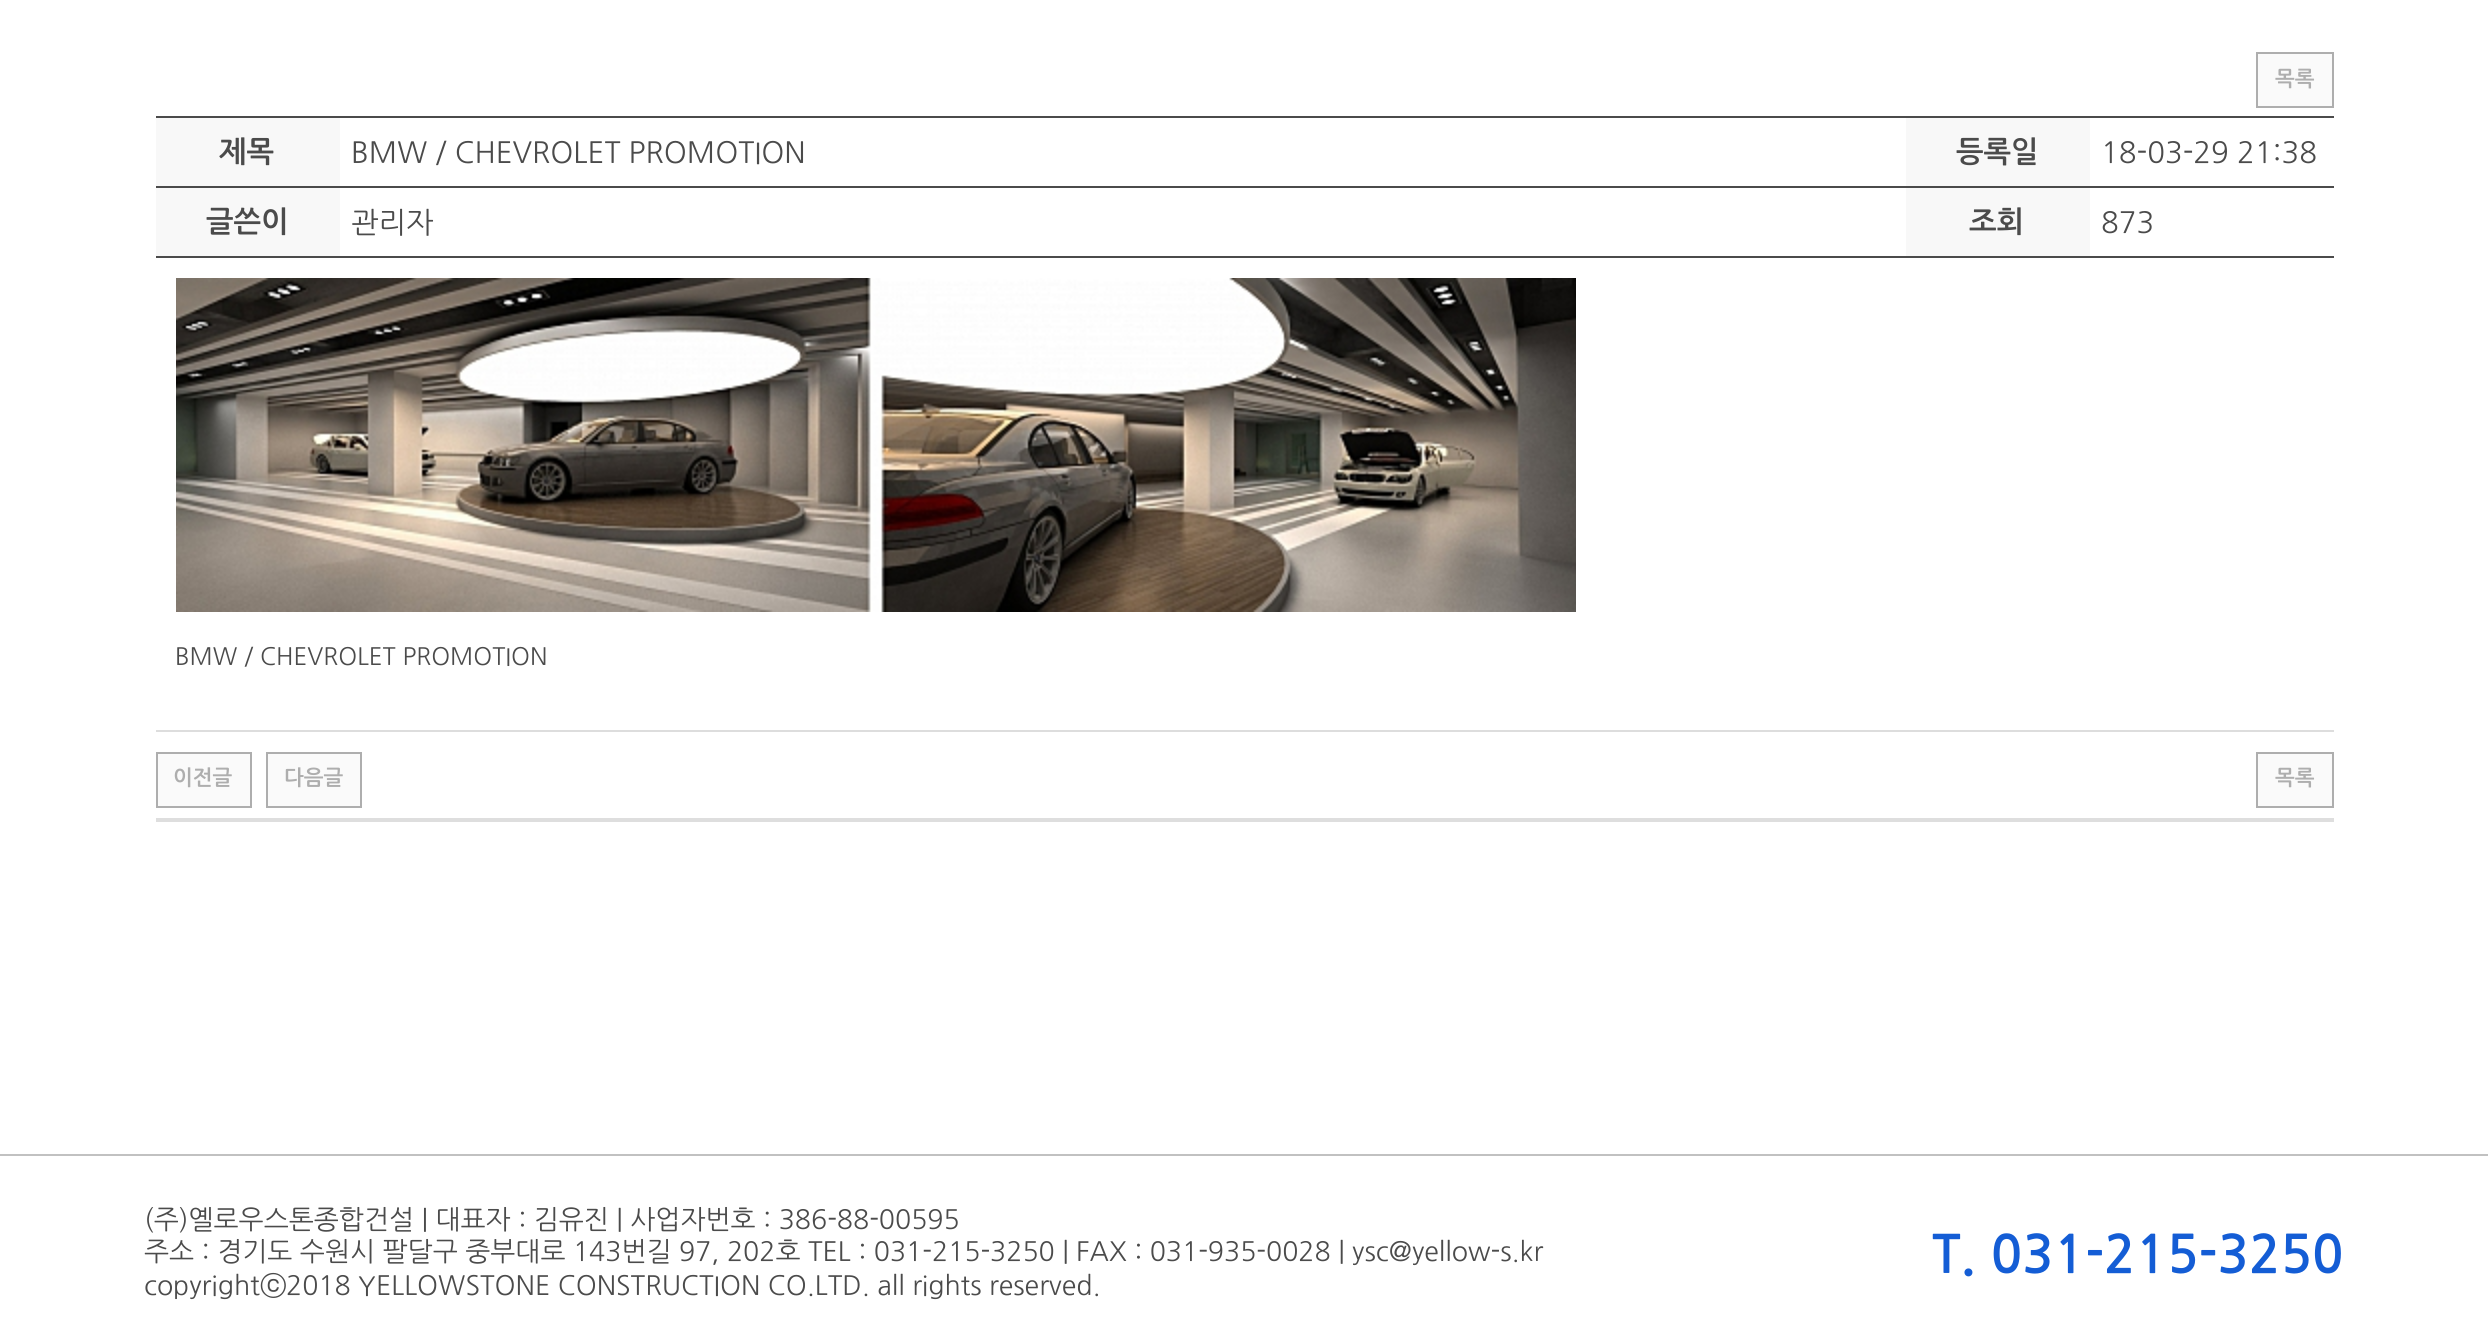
import math
import cairo

surface = cairo.ImageSurface(cairo.FORMAT_RGB24, 2488, 1326)
cr = cairo.Context(surface)
options = cairo.FontOptions()
options.set_hint_metrics(cairo.HINT_METRICS_OFF)
options.set_hint_style(cairo.HINT_STYLE_NONE)
cr.set_font_options(options)
cr.set_miter_limit(4)


def rgb(code):
    cr.set_source_rgb(*(v / 255 for v in bytes.fromhex(code[-6:])))


def image(path, x, y, w, h):
    cr.save()
    cr.set_source_surface(cairo.ImageSurface.create_from_png(path), x, y)
    cr.rectangle(x, y, w, h)
    cr.fill()
    cr.restore()


rgb("#ffffff")
cr.paint()
rgb("#fafafa")
cr.rectangle(2257, 53, 76, 54)
cr.fill_preserve()
rgb("#aeaeae")
cr.stroke()
for x, y, w, h, color in [
    (156, 256, 2178, 2, "#4b4b4b"),
    (156, 118, 184, 68, "#f8f8f8"),
    (156, 116, 2178, 2, "#4b4b4b"),
    (1906, 118, 184, 68, "#f8f8f8"),
    (156, 188, 184, 68, "#f8f8f8"),
    (156, 186, 2178, 2, "#4b4b4b"),
    (1906, 188, 184, 68, "#f8f8f8"),
]:
    rgb(color)
    cr.rectangle(x, y, w, h)
    cr.fill()
image("img/1.png", 176, 278, 1400, 334)
rgb("#dddddd")
cr.rectangle(156, 730, 2178, 2)
cr.fill()
rgb("#fafafa")
cr.rectangle(157, 753, 94, 54)
cr.fill_preserve()
rgb("#aeaeae")
cr.stroke()
rgb("#fafafa")
cr.rectangle(267, 753, 94, 54)
cr.fill_preserve()
rgb("#aeaeae")
cr.stroke()
rgb("#fafafa")
cr.rectangle(2257, 753, 76, 54)
cr.fill_preserve()
rgb("#aeaeae")
cr.stroke()
rgb("#dedede")
cr.rectangle(156, 818, 2178, 4)
cr.fill()
rgb("#c1c1c1")
cr.rectangle(0, 1154, 2488, 2)
cr.fill()
cr.select_font_face("NanumGothic", cairo.FONT_SLANT_NORMAL, cairo.FONT_WEIGHT_BOLD)
cr.set_font_size(21)
rgb("#aeaeae")
cr.move_to(2275, 86)
cr.show_text("목록")
cr.set_font_size(29.3)
rgb("#4b4b4b")
cr.move_to(219, 162)
cr.show_text("제목")
cr.select_font_face("NanumGothic")
cr.move_to(351, 163)
cr.show_text("BMW / CHEVROLET PROMOTION")
cr.select_font_face("NanumGothic", cairo.FONT_SLANT_NORMAL, cairo.FONT_WEIGHT_BOLD)
cr.move_to(1956, 162)
cr.show_text("등록일")
cr.select_font_face("NanumGothic")
cr.move_to(2101, 163)
cr.show_text("18-03-29 21:38")
cr.select_font_face("NanumGothic", cairo.FONT_SLANT_NORMAL, cairo.FONT_WEIGHT_BOLD)
cr.move_to(206, 232)
cr.show_text("글쓴이")
cr.select_font_face("NanumGothic")
cr.move_to(351, 233)
cr.show_text("관리자")
cr.select_font_face("NanumGothic", cairo.FONT_SLANT_NORMAL, cairo.FONT_WEIGHT_BOLD)
cr.move_to(1969, 232)
cr.show_text("조회")
cr.select_font_face("NanumGothic")
cr.move_to(2101, 233)
cr.show_text("873")
cr.set_font_size(24)
cr.move_to(175, 665)
cr.show_text("BMW / CHEVROLET PROMOTION")
cr.select_font_face("NanumGothic", cairo.FONT_SLANT_NORMAL, cairo.FONT_WEIGHT_BOLD)
cr.set_font_size(21)
rgb("#aeaeae")
for x, y, s in [
    (173, 785, "이전글"),
    (284, 785, "다음글"),
    (2275, 785, "목록"),
]:
    cr.move_to(x, y)
    cr.show_text(s)
cr.select_font_face("NanumGothic")
cr.set_font_size(26.67)
rgb("#4b4b4b")
for x, y, s in [
    (144, 1229, "(주)옐로우스톤종합건설 | 대표자 : 김유진 | 사업자번호 : 386-88-00595"),
    (144, 1261, "주소 : 경기도 수원시 팔달구 중부대로 143번길 97, 202호 TEL : 031-215-3250 | FAX : 031-935-0028 | ysc@yellow-s.kr"),
    (144, 1295, "copyright"),
]:
    cr.move_to(x, y)
    cr.show_text(s)
cr.select_font_face("WenQuanYi Zen Hei Medium")
cr.move_to(260, 1295)
cr.show_text("ⓒ")
cr.select_font_face("NanumGothic")
cr.move_to(286, 1295)
cr.show_text("2018 YELLOWSTONE CONSTRUCTION CO.LTD. all rights reserved.")
cr.select_font_face("NanumGothic", cairo.FONT_SLANT_NORMAL, cairo.FONT_WEIGHT_BOLD)
cr.set_font_size(52)
rgb("#145dd5")
cr.move_to(1932, 1273)
cr.show_text("T. 031-215-3250")
surface.write_to_png("page.png")
